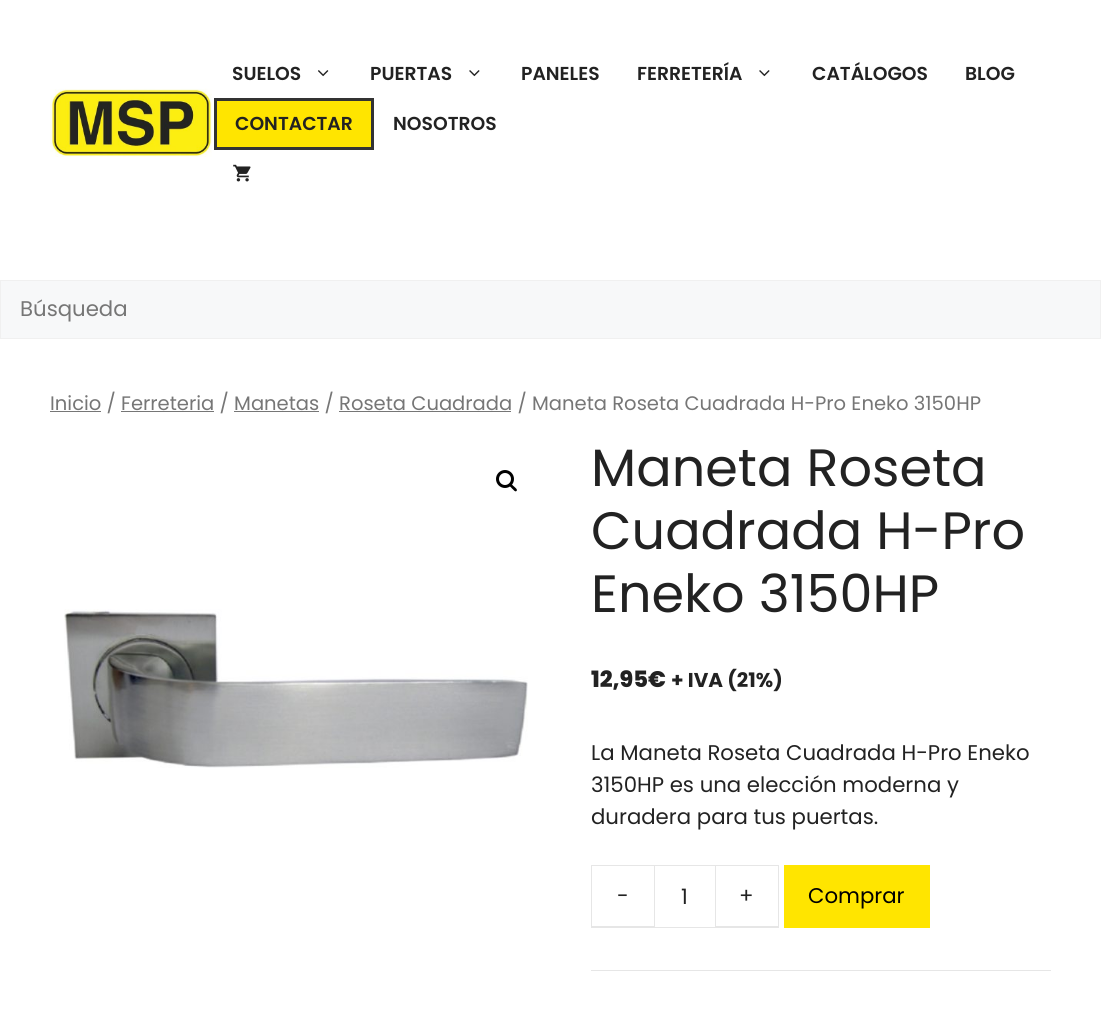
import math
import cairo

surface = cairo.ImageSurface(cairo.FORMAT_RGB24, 1101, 1010)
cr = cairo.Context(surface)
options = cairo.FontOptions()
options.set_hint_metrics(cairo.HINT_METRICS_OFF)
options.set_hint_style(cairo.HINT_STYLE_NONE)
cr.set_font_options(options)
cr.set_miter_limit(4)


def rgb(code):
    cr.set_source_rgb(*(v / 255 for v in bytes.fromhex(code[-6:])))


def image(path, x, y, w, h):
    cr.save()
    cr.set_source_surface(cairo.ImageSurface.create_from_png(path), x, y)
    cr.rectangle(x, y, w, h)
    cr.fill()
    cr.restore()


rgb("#ffffff")
cr.paint()
image("img/1.png", 50, 88, 162, 69)
image("img/2.png", 318, 70, 11, 7)
image("img/3.png", 469, 70, 11, 7)
image("img/3.png", 759, 70, 11, 7)
rgb("#ffe500")
cr.rectangle(215.5, 99.5, 157, 49)
cr.fill_preserve()
rgb("#333333")
cr.set_line_width(3)
cr.stroke()
image("img/4.png", 233, 164, 18, 18)
rgb("#f7f8f9")
cr.rectangle(0.5, 280.5, 1100, 58)
cr.fill_preserve()
rgb("#f0f0f0")
cr.set_line_width(1)
cr.stroke()
for x, y, w, h, color in [
    (50, 411, 51, 1, "#767676"),
    (121, 411, 93, 1, "#767676"),
    (234, 411, 85, 1, "#767676"),
    (339, 411, 172, 1, "#767676"),
]:
    rgb(color)
    cr.rectangle(x, y, w, h)
    cr.fill()
cr.arc(505, 479, 7.5, 0, 2 * math.pi)
rgb("#000000")
cr.set_line_width(3)
cr.stroke()
cr.new_path()
cr.move_to(509.5, 484)
cr.curve_to(511, 482.5, 513, 486, 514, 486.5)
cr.curve_to(515, 487.5, 518, 489.5, 516.5, 491)
cr.curve_to(515, 492.5, 513, 489, 512, 488.5)
cr.curve_to(511.5, 487.5, 508, 485.5, 509.5, 484)
cr.close_path()
cr.fill()
image("img/5.png", 64, 609, 464, 159)
rgb("#e6e6e6")
cr.new_path()
cr.move_to(591, 865)
cr.line_to(654, 865)
cr.line_to(654, 866)
cr.line_to(592, 866)
cr.close_path()
cr.move_to(654, 928)
cr.line_to(591, 928)
cr.line_to(592, 926)
cr.line_to(654, 926)
cr.close_path()
cr.fill()
cr.set_source_rgba(0, 0, 0, 0.1)
cr.new_path()
cr.move_to(591, 928)
cr.line_to(591, 865)
cr.line_to(592, 866)
cr.line_to(592, 926)
cr.close_path()
cr.fill()
cr.rectangle(654.5, 865.5, 61, 62)
rgb("#e6e6e6")
cr.set_line_width(1)
cr.stroke()
cr.new_path()
cr.move_to(716, 865)
cr.line_to(779, 865)
cr.line_to(778, 866)
cr.line_to(716, 866)
cr.close_path()
cr.fill()
cr.set_source_rgba(0, 0, 0, 0.1)
cr.new_path()
cr.move_to(779, 865)
cr.line_to(779, 928)
cr.line_to(778, 926)
cr.line_to(778, 866)
cr.close_path()
cr.fill()
cr.new_path()
cr.move_to(779, 928)
cr.line_to(716, 928)
cr.line_to(716, 926)
cr.line_to(778, 926)
cr.close_path()
cr.fill()
rgb("#ffe500")
cr.rectangle(784, 865, 146, 63)
cr.fill()
rgb("#e6e6e6")
cr.rectangle(591, 970, 460, 1)
cr.fill()
cr.select_font_face("Poppins SemiBold")
cr.set_font_size(18.75)
rgb("#222222")
for x, y, s in [
    (232, 80, "SUELOS"),
    (370, 80, "PUERTAS"),
    (521, 80, "PANELES"),
    (637, 80, "FERRETERÍA"),
    (812, 80, "CATÁLOGOS"),
    (965, 80, "BLOG"),
    (235, 130, "CONTACTAR"),
    (393, 130, "NOSOTROS"),
]:
    cr.move_to(x, y)
    cr.show_text(s)
cr.select_font_face("Poppins")
cr.set_font_size(21.25)
rgb("#767676")
cr.move_to(20, 316)
cr.show_text("Búsqueda")
cr.set_font_size(19.55)
cr.move_to(50, 410)
cr.show_text("Inicio / Ferreteria / Manetas / Roseta Cuadrada / Maneta Roseta Cuadrada H-Pro Eneko 3150HP")
cr.set_font_size(52.5)
rgb("#222222")
for x, y, s in [
    (591, 486, "Maneta Roseta"),
    (591, 549, "Cuadrada H-Pro"),
    (591, 612, "Eneko 3150HP"),
]:
    cr.move_to(x, y)
    cr.show_text(s)
cr.select_font_face("Poppins ExtraBold")
cr.set_font_size(22.5)
cr.move_to(591, 687)
cr.show_text("12,95€")
cr.select_font_face("Poppins", cairo.FONT_SLANT_NORMAL, cairo.FONT_WEIGHT_BOLD)
cr.set_font_size(20)
cr.move_to(671, 687)
cr.show_text("+ IVA (21%)")
cr.select_font_face("Poppins")
cr.set_font_size(21.25)
for x, y, s in [
    (591, 760, "La Maneta Roseta Cuadrada H-Pro Eneko"),
    (591, 792, "3150HP es una elección moderna y"),
    (591, 824, "duradera para tus puertas."),
    (617, 903, "-"),
    (681, 904, "1"),
    (739, 903, "+"),
]:
    cr.move_to(x, y)
    cr.show_text(s)
rgb("#000000")
cr.move_to(808, 903)
cr.show_text("Comprar")
surface.write_to_png("page.png")
